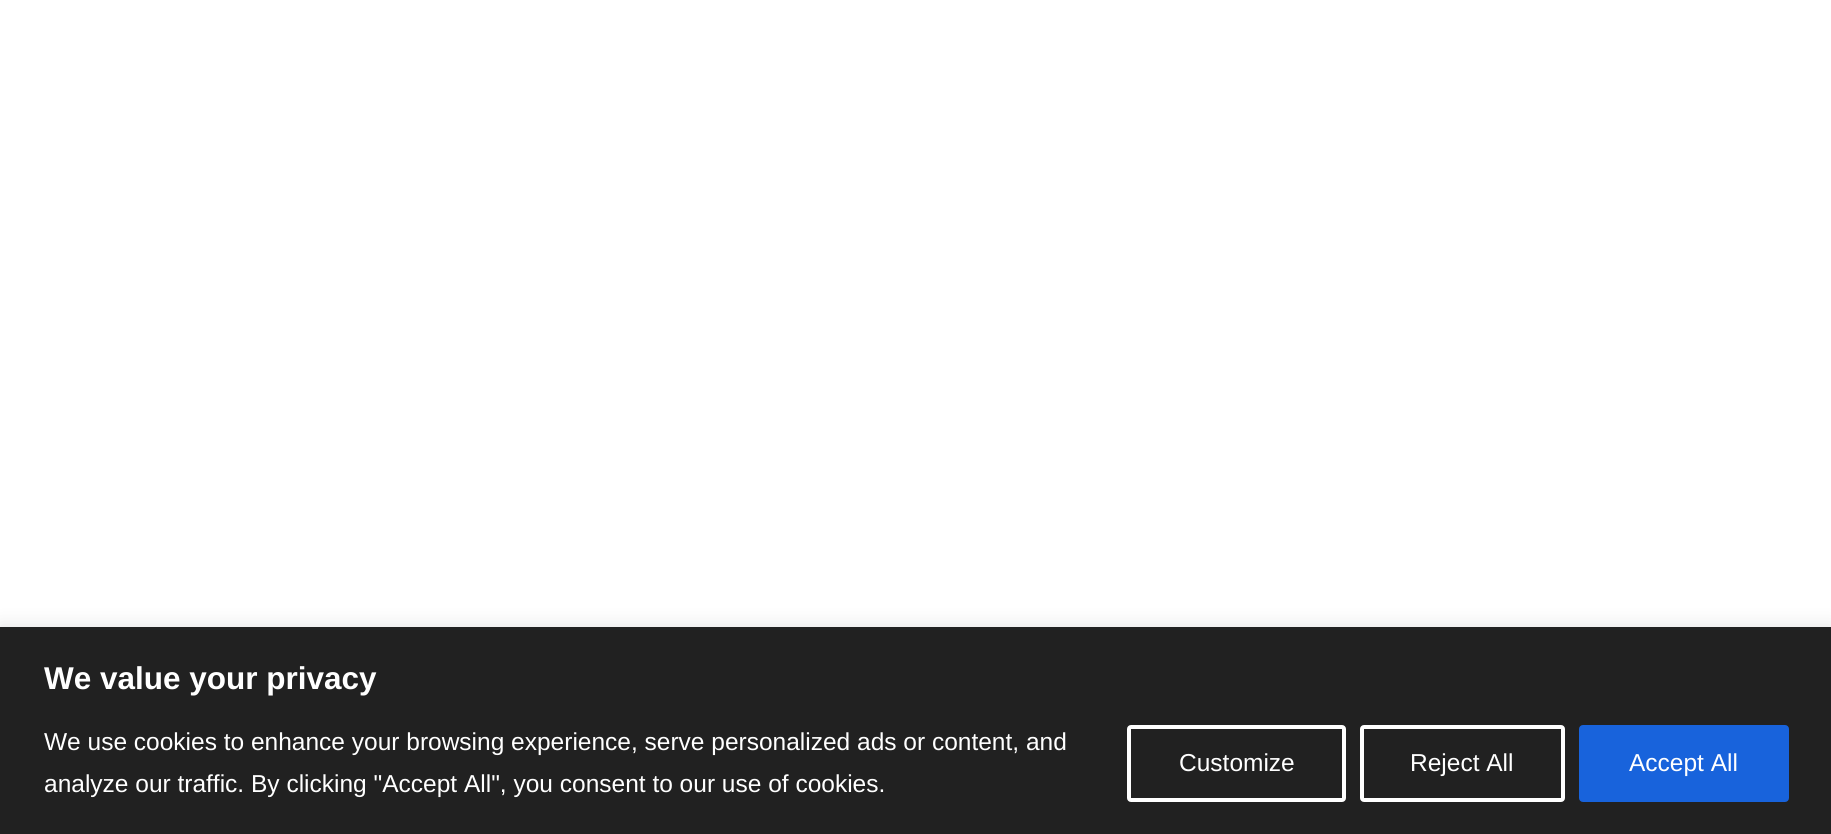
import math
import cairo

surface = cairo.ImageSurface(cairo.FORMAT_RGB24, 1831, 834)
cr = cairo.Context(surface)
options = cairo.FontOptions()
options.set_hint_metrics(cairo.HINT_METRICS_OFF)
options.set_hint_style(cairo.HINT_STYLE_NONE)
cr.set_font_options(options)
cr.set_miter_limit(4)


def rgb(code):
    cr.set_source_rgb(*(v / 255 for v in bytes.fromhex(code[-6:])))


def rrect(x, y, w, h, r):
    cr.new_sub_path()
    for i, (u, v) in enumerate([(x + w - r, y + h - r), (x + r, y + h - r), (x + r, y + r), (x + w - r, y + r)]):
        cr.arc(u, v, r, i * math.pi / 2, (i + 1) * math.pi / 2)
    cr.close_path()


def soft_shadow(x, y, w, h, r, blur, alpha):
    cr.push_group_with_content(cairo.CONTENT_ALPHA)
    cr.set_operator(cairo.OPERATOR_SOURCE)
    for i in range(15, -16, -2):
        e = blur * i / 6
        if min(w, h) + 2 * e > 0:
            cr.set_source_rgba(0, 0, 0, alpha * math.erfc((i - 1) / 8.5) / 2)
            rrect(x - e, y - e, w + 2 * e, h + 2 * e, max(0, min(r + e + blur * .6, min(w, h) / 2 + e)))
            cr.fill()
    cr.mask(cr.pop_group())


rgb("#ffffff")
cr.paint()
rgb("#acabab")
soft_shadow(0, 625, 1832, 208, 0, 9, 0.3)
rgb("#212121")
cr.rectangle(0, 627, 1831, 207)
cr.fill()
rrect(1129, 727, 215, 73, 2)
rgb("#ffffff")
cr.set_line_width(4)
cr.stroke()
rrect(1362, 727, 201, 73, 2)
cr.stroke()
rgb("#1863dc")
rrect(1581, 727, 206, 73, 2)
cr.fill_preserve()
cr.stroke()
cr.select_font_face("Liberation Sans", cairo.FONT_SLANT_NORMAL, cairo.FONT_WEIGHT_BOLD)
cr.set_font_size(31.5)
rgb("#ffffff")
cr.move_to(44, 689)
cr.show_text("We value your privacy")
cr.select_font_face("Liberation Sans")
cr.set_font_size(24.5)
for x, y, s in [
    (44, 750, "We use cookies to enhance your browsing experience, serve personalized ads or content, and"),
    (44, 792, "analyze our traffic. By clicking \"Accept All\", you consent to our use of cookies."),
    (1179, 771, "Customize"),
    (1410, 771, "Reject All"),
    (1629, 771, "Accept All"),
]:
    cr.move_to(x, y)
    cr.show_text(s)
surface.write_to_png("page.png")
